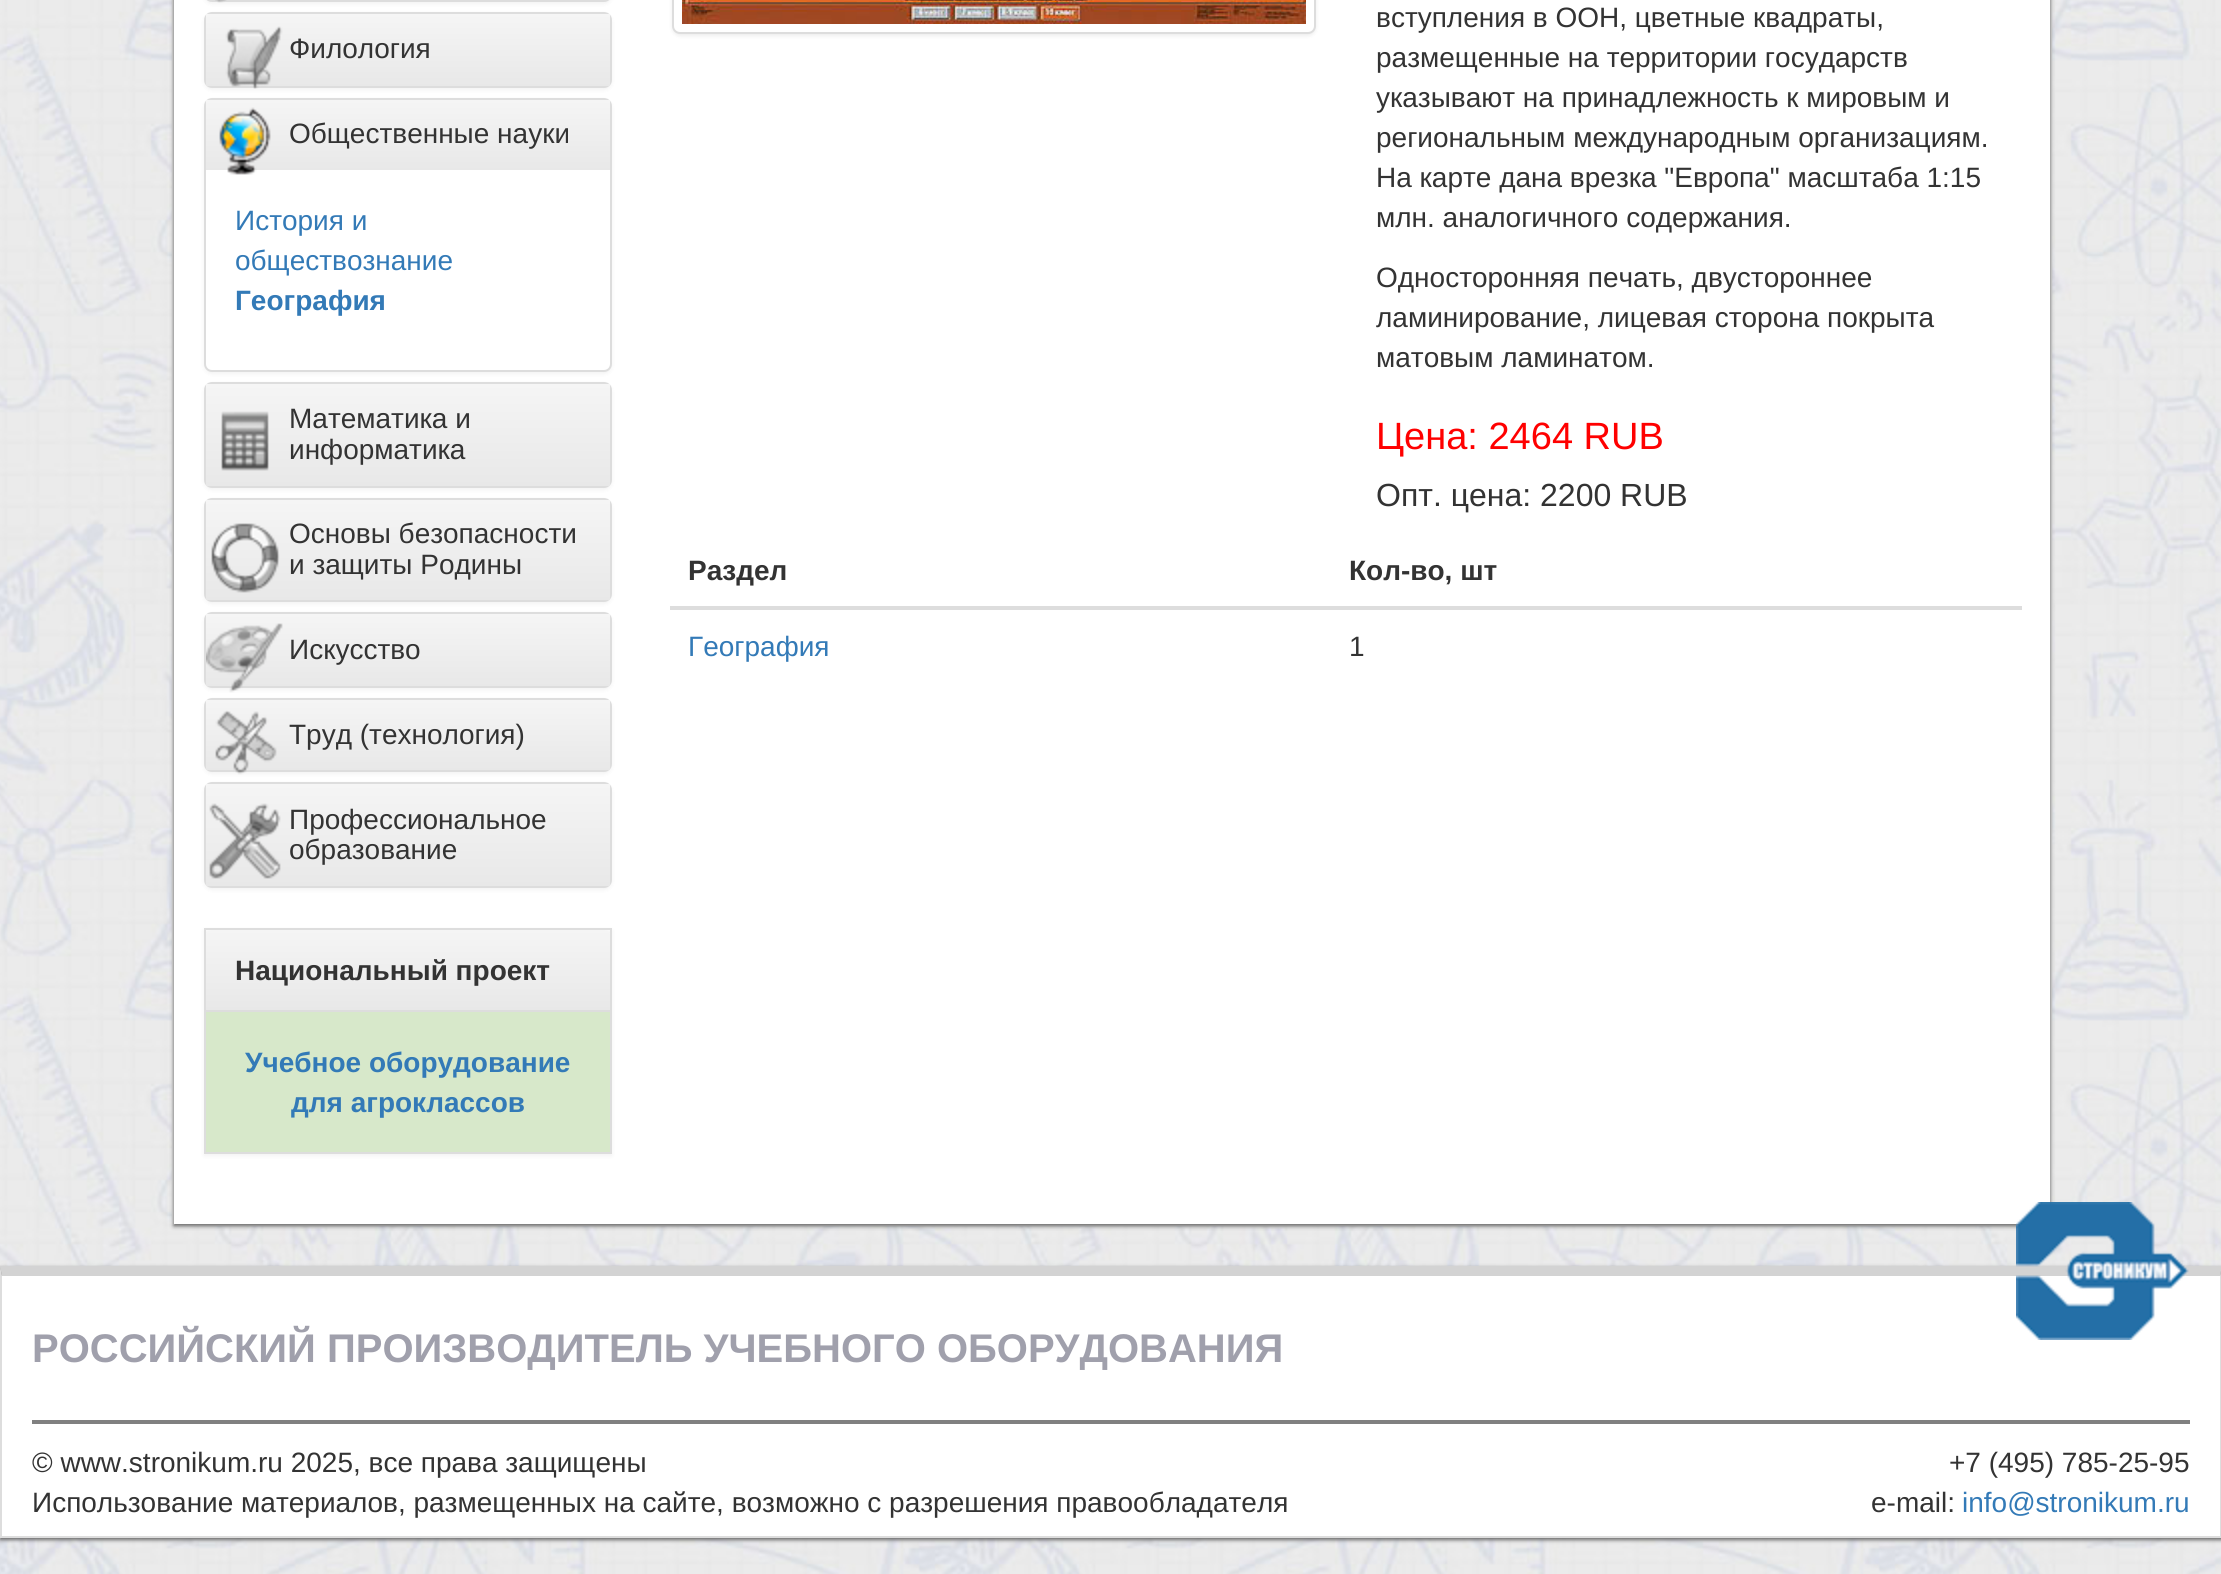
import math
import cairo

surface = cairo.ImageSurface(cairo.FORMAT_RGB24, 2221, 1574)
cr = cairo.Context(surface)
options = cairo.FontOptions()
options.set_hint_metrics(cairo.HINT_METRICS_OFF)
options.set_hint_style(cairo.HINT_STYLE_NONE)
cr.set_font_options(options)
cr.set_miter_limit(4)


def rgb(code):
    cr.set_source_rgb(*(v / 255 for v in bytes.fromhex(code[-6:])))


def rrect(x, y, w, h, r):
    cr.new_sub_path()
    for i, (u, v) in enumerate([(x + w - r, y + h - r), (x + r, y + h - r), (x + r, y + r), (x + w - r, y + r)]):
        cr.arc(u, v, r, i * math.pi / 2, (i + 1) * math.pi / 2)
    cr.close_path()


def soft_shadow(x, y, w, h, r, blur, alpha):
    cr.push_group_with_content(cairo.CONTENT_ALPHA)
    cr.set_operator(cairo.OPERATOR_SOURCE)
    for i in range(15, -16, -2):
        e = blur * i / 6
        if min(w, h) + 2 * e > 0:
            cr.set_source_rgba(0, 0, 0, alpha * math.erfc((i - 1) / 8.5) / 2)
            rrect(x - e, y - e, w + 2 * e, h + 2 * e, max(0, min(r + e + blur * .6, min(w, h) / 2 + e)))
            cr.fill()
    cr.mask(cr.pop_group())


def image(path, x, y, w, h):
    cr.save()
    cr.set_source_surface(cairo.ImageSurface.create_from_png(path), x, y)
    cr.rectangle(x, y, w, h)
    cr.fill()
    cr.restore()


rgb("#ffffff")
cr.paint()
image("img/1.png", 0, 0, 2221, 1574)
rgb("#000000")
soft_shadow(172, -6, 1880, 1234, 0, 2, 0.05)
rgb("#ffffff")
cr.rectangle(173, -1, 1878, 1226)
cr.fill_preserve()
rgb("#dddddd")
cr.stroke()
cr.save()
cr.set_fill_rule(cairo.FILL_RULE_EVEN_ODD)
cr.new_path()
cr.move_to(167, 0)
cr.line_to(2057, 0)
cr.line_to(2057, 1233)
cr.line_to(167, 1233)
cr.close_path()
cr.move_to(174, -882)
cr.line_to(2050, -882)
cr.line_to(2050, 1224)
cr.line_to(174, 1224)
cr.close_path()
cr.clip()
rgb("#666666")
soft_shadow(174, -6, 1876, 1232, 0, 2, 1)
cr.restore()
rgb("#000000")
soft_shadow(204, -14, 408, 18, 8, 2, 0.05)
rrect(205, -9, 406, 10, 7)
rgb("#dddddd")
cr.stroke()
image("img/2.png", 215, 0, 12, 3)
rgb("#000000")
soft_shadow(204, 14, 408, 76, 8, 2, 0.05)
rrect(205, 13, 406, 74, 7)
rgb("#dddddd")
cr.stroke()
gradient = cairo.LinearGradient(408, 14, 408, 86)
gradient.add_color_stop_rgba(0, 0.961, 0.961, 0.961, 1)
gradient.add_color_stop_rgba(1, 0.91, 0.91, 0.91, 1)
cr.set_source(gradient)
cr.rectangle(206, 14, 404, 72)
cr.fill()
image("img/3.png", 225, 26, 58, 63)
rgb("#000000")
soft_shadow(204, 100, 408, 274, 8, 2, 0.05)
rgb("#ffffff")
rrect(205, 99, 406, 272, 7)
cr.fill_preserve()
rgb("#dddddd")
cr.stroke()
gradient = cairo.LinearGradient(408, 100, 408, 170)
gradient.add_color_stop_rgba(0, 0.961, 0.961, 0.961, 1)
gradient.add_color_stop_rgba(1, 0.91, 0.91, 0.91, 1)
cr.set_source(gradient)
cr.rectangle(206, 100, 404, 70)
cr.fill()
image("img/4.png", 219, 107, 52, 68)
rgb("#000000")
soft_shadow(204, 384, 408, 106, 8, 2, 0.05)
rrect(205, 383, 406, 104, 7)
rgb("#dddddd")
cr.stroke()
gradient = cairo.LinearGradient(408, 384, 408, 486)
gradient.add_color_stop_rgba(0, 0.961, 0.961, 0.961, 1)
gradient.add_color_stop_rgba(1, 0.91, 0.91, 0.91, 1)
cr.set_source(gradient)
cr.rectangle(206, 384, 404, 102)
cr.fill()
image("img/5.png", 221, 411, 48, 60)
rgb("#000000")
soft_shadow(204, 500, 408, 104, 8, 2, 0.05)
rrect(205, 499, 406, 102, 7)
rgb("#dddddd")
cr.stroke()
gradient = cairo.LinearGradient(408, 500, 408, 600)
gradient.add_color_stop_rgba(0, 0.961, 0.961, 0.961, 1)
gradient.add_color_stop_rgba(1, 0.91, 0.91, 0.91, 1)
cr.set_source(gradient)
cr.rectangle(206, 500, 404, 100)
cr.fill()
image("img/6.png", 211, 523, 69, 70)
rgb("#000000")
soft_shadow(204, 614, 408, 76, 8, 2, 0.05)
rrect(205, 613, 406, 74, 7)
rgb("#dddddd")
cr.stroke()
gradient = cairo.LinearGradient(408, 614, 408, 686)
gradient.add_color_stop_rgba(0, 0.961, 0.961, 0.961, 1)
gradient.add_color_stop_rgba(1, 0.91, 0.91, 0.91, 1)
cr.set_source(gradient)
cr.rectangle(206, 614, 404, 72)
cr.fill()
image("img/7.png", 206, 623, 77, 70)
rgb("#000000")
soft_shadow(204, 700, 408, 74, 8, 2, 0.05)
rrect(205, 699, 406, 72, 7)
rgb("#dddddd")
cr.stroke()
gradient = cairo.LinearGradient(408, 700, 408, 770)
gradient.add_color_stop_rgba(0, 0.961, 0.961, 0.961, 1)
gradient.add_color_stop_rgba(1, 0.91, 0.91, 0.91, 1)
cr.set_source(gradient)
cr.rectangle(206, 700, 404, 70)
cr.fill()
image("img/8.png", 215, 710, 62, 65)
rgb("#000000")
soft_shadow(204, 784, 408, 106, 8, 2, 0.05)
rrect(205, 783, 406, 104, 7)
rgb("#dddddd")
cr.stroke()
gradient = cairo.LinearGradient(408, 784, 408, 886)
gradient.add_color_stop_rgba(0, 0.961, 0.961, 0.961, 1)
gradient.add_color_stop_rgba(1, 0.91, 0.91, 0.91, 1)
cr.set_source(gradient)
cr.rectangle(206, 784, 404, 102)
cr.fill()
image("img/9.png", 209, 803, 72, 76)
rgb("#000000")
soft_shadow(204, 930, 408, 226, 0, 2, 0.05)
cr.rectangle(205, 929, 406, 224)
rgb("#dddddd")
cr.stroke()
gradient = cairo.LinearGradient(408, 930, 408, 1010)
gradient.add_color_stop_rgba(0, 0.961, 0.961, 0.961, 1)
gradient.add_color_stop_rgba(1, 0.91, 0.91, 0.91, 1)
cr.set_source(gradient)
cr.new_path()
cr.move_to(212, 930)
cr.line_to(604, 930)
cr.curve_to(607.5, 930, 610, 932.5, 610, 936)
cr.line_to(610, 1010)
cr.line_to(206, 1010)
cr.line_to(206, 936)
cr.curve_to(206, 932.5, 208.5, 930, 212, 930)
cr.close_path()
cr.fill()
rgb("#dddddd")
cr.rectangle(206, 1010, 404, 2)
cr.fill()
rgb("#d7e8ca")
cr.rectangle(206, 1012, 404, 140)
cr.fill()
rgb("#000000")
soft_shadow(672, -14, 644, 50, 8, 2, 0.07)
rgb("#ffffff")
rrect(673, -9, 642, 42, 7)
cr.fill_preserve()
rgb("#dddddd")
cr.stroke()
image("img/10.png", 682, 0, 624, 24)
cr.rectangle(670, 606, 1352, 4)
cr.fill()
rgb("#666666")
soft_shadow(0, 1268, 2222, 272, 0, 2, 1)
rgb("#ffffff")
cr.rectangle(2, 1276, 2218, 260)
cr.fill()
rgb("#d3d3d3")
cr.new_path()
cr.move_to(0, 1266)
cr.line_to(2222, 1266)
cr.line_to(2220, 1276)
cr.line_to(2, 1276)
cr.close_path()
cr.fill()
rgb("#dddddd")
cr.new_path()
cr.move_to(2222, 1266)
cr.line_to(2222, 1538)
cr.line_to(2220, 1536)
cr.line_to(2220, 1276)
cr.close_path()
cr.fill()
cr.rectangle(0, 1536, 2221, 2)
cr.fill()
cr.new_path()
cr.move_to(0, 1538)
cr.line_to(0, 1266)
cr.line_to(2, 1276)
cr.line_to(2, 1536)
cr.close_path()
cr.fill()
image("img/11.png", 2016, 1202, 173, 138)
rgb("#808080")
cr.rectangle(32, 1420, 2158, 4)
cr.fill()
cr.select_font_face("Liberation Sans")
cr.set_font_size(28)
rgb("#333333")
cr.move_to(289, 58)
cr.show_text("Филология")
cr.move_to(289, 143)
cr.show_text("Общественные науки")
rgb("#337ab7")
cr.move_to(235, 230)
cr.show_text("История и")
cr.move_to(235, 270)
cr.show_text("обществознание")
cr.select_font_face("Liberation Sans", cairo.FONT_SLANT_NORMAL, cairo.FONT_WEIGHT_BOLD)
cr.move_to(235, 310)
cr.show_text("География")
cr.select_font_face("Liberation Sans")
rgb("#333333")
for x, y, s in [
    (289, 428, "Математика и"),
    (289, 459, "информатика"),
    (289, 543, "Основы безопасности"),
    (289, 574, "и защиты Родины"),
    (289, 659, "Искусство"),
    (289, 744, "Труд (технология)"),
    (289, 829, "Профессиональное"),
    (289, 859, "образование"),
]:
    cr.move_to(x, y)
    cr.show_text(s)
cr.select_font_face("Liberation Sans", cairo.FONT_SLANT_NORMAL, cairo.FONT_WEIGHT_BOLD)
cr.move_to(235, 980)
cr.show_text("Национальный проект")
rgb("#337ab7")
cr.move_to(245, 1072)
cr.show_text("Учебное оборудование")
cr.move_to(291, 1112)
cr.show_text("для агроклассов")
cr.select_font_face("Liberation Sans")
rgb("#333333")
for x, y, s in [
    (1376, 27, "вступления в ООН, цветные квадраты,"),
    (1376, 67, "размещенные на территории государств"),
    (1376, 107, "указывают на принадлежность к мировым и"),
    (1376, 147, "региональным международным организациям."),
    (1376, 187, "На карте дана врезка \"Европа\" масштаба 1:15"),
    (1376, 227, "млн. аналогичного содержания."),
    (1376, 287, "Односторонняя печать, двустороннее"),
    (1376, 327, "ламинирование, лицевая сторона покрыта"),
    (1376, 367, "матовым ламинатом."),
]:
    cr.move_to(x, y)
    cr.show_text(s)
cr.set_font_size(38)
rgb("#ff0000")
cr.move_to(1376, 449)
cr.show_text("Цена: 2464 RUB")
cr.set_font_size(32)
rgb("#333333")
cr.move_to(1376, 506)
cr.show_text("Опт. цена: 2200 RUB")
cr.select_font_face("Liberation Sans", cairo.FONT_SLANT_NORMAL, cairo.FONT_WEIGHT_BOLD)
cr.set_font_size(28)
cr.move_to(688, 580)
cr.show_text("Раздел")
cr.move_to(1349, 580)
cr.show_text("Кол-во, шт")
cr.select_font_face("Liberation Sans")
rgb("#337ab7")
cr.move_to(688, 656)
cr.show_text("География")
rgb("#333333")
cr.move_to(1349, 656)
cr.show_text("1")
cr.select_font_face("Liberation Sans", cairo.FONT_SLANT_NORMAL, cairo.FONT_WEIGHT_BOLD)
cr.set_font_size(40)
rgb("#a0a0ac")
cr.move_to(32, 1362)
cr.show_text("РОССИЙСКИЙ ПРОИЗВОДИТЕЛЬ УЧЕБНОГО ОБОРУДОВАНИЯ")
cr.select_font_face("Liberation Sans")
cr.set_font_size(28)
rgb("#333333")
for x, y, s in [
    (32, 1472, "© www.stronikum.ru 2025, все права защищены"),
    (32, 1512, "Использование материалов, размещенных на сайте, возможно с разрешения правообладателя"),
    (1949, 1472, "+7 (495) 785-25-95"),
    (1871, 1512, "e-mail:"),
]:
    cr.move_to(x, y)
    cr.show_text(s)
rgb("#337ab7")
cr.move_to(1962, 1512)
cr.show_text("info@stronikum.ru")
surface.write_to_png("page.png")
